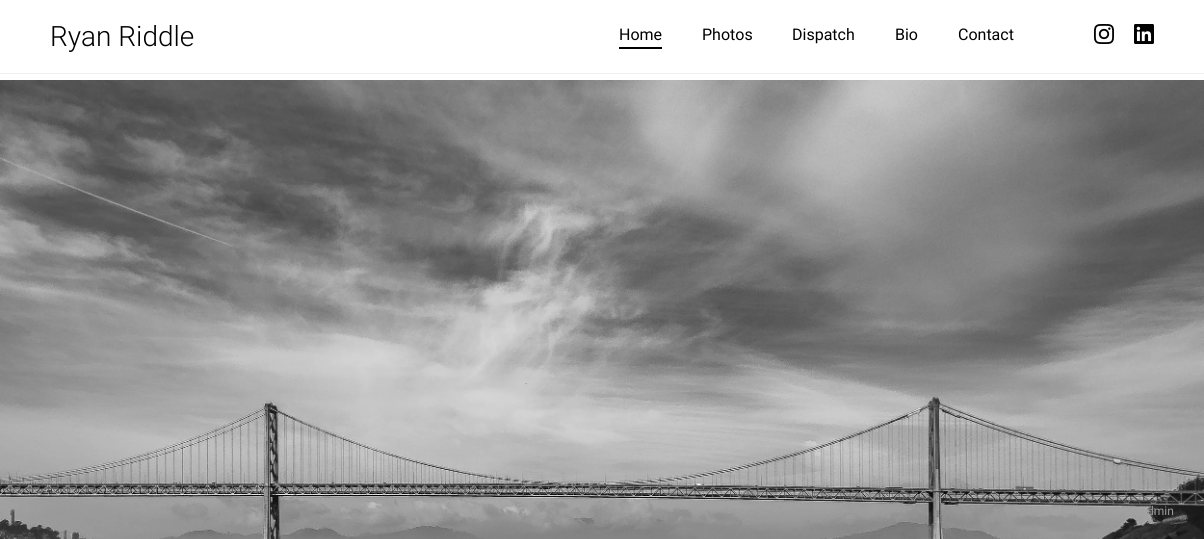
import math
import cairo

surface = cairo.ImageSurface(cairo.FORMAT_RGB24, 1204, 539)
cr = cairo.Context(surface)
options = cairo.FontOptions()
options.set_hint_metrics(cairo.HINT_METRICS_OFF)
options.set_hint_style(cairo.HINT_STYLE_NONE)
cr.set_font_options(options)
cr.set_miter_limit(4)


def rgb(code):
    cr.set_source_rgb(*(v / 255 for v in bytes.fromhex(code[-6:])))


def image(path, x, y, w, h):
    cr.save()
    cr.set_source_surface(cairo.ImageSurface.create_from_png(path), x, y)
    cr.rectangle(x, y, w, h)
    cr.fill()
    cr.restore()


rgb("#ffffff")
cr.paint()
rgb("#f0f0f0")
cr.rectangle(0, 73, 1204, 1)
cr.fill()
rgb("#000000")
cr.rectangle(619, 47, 43, 2)
cr.fill()
image("img/1.png", 1094, 24, 20, 20)
image("img/2.png", 1134, 24, 20, 20)
image("img/3.png", 0, 80, 1204, 459)
cr.select_font_face("Roboto Light")
cr.set_font_size(28)
cr.move_to(50, 46)
cr.show_text("Ryan Riddle")
cr.select_font_face("Roboto")
cr.set_font_size(16)
for x, y, s in [
    (619, 40, "Home"),
    (702, 40, "Photos"),
    (792, 40, "Dispatch"),
    (895, 40, "Bio"),
    (958, 40, "Contact"),
]:
    cr.move_to(x, y)
    cr.show_text(s)
cr.set_font_size(12)
rgb("#999999")
cr.move_to(1147, 515)
cr.show_text("dmin")
surface.write_to_png("page.png")
